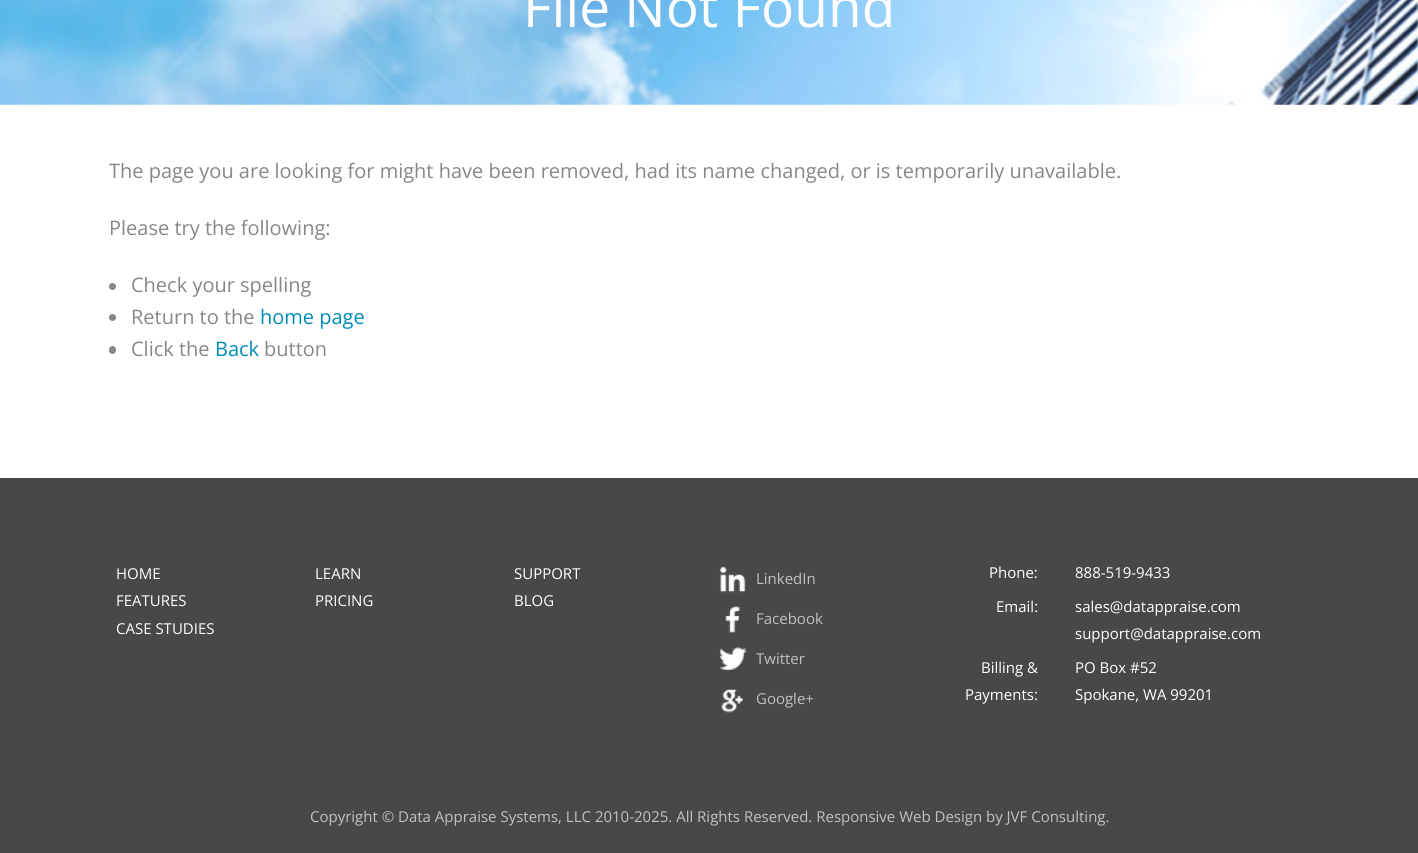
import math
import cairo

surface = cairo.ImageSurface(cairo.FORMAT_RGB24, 1418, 853)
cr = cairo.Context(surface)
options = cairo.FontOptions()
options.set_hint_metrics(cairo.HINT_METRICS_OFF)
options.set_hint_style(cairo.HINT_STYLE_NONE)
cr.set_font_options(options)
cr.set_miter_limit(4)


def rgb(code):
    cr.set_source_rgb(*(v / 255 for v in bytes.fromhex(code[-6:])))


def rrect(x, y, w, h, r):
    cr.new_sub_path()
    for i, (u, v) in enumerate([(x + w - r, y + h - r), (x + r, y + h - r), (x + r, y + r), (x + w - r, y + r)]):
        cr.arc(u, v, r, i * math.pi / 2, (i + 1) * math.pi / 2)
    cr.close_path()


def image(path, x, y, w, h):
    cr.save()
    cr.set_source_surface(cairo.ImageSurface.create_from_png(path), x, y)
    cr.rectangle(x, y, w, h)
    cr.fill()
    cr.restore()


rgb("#ffffff")
cr.paint()
image("img/1.png", 0, 0, 1418, 105)
rgb("#878787")
cr.arc(112.5, 286.5, 3.5, 0, 2 * math.pi)
cr.fill()
cr.arc(112.5, 317.5, 3.5, 0, 2 * math.pi)
cr.fill()
rrect(109, 346, 7, 8, 3.5)
cr.fill()
rgb("#484848")
cr.rectangle(0, 478, 1418, 375)
cr.fill()
image("img/2.png", 719, 566, 27, 27)
image("img/3.png", 725, 606, 16, 27)
image("img/4.png", 719, 647, 28, 24)
image("img/5.png", 721, 689, 22, 24)
cr.select_font_face("Open Sans")
cr.set_font_size(55)
rgb("#ffffff")
cr.move_to(523, 27)
cr.show_text("File Not Found")
cr.set_font_size(20)
rgb("#878787")
for x, y, s in [
    (109, 178, "The page you are looking for might have been removed, had its name changed, or is temporarily unavailable."),
    (109, 235, "Please try the following:"),
    (131, 292, "Check your spelling"),
    (131, 324, "Return to the"),
]:
    cr.move_to(x, y)
    cr.show_text(s)
rgb("#008cba")
cr.move_to(260, 324)
cr.show_text("home page")
rgb("#878787")
cr.move_to(131, 356)
cr.show_text("Click the")
rgb("#008cba")
cr.move_to(215, 356)
cr.show_text("Back")
rgb("#878787")
cr.move_to(264, 356)
cr.show_text("button")
cr.set_font_size(15)
rgb("#ffffff")
for x, y, s in [
    (116, 579, "HOME"),
    (116, 606, "FEATURES"),
    (116, 634, "CASE STUDIES"),
    (315, 579, "LEARN"),
    (315, 606, "PRICING"),
    (514, 579, "SUPPORT"),
    (514, 606, "BLOG"),
]:
    cr.move_to(x, y)
    cr.show_text(s)
rgb("#c1c1c1")
for x, y, s in [
    (756, 584, "LinkedIn"),
    (756, 624, "Facebook"),
    (756, 664, "Twitter"),
    (756, 704, "Google+"),
]:
    cr.move_to(x, y)
    cr.show_text(s)
rgb("#ffffff")
for x, y, s in [
    (989, 578, "Phone:"),
    (1075, 578, "888-519-9433"),
    (996, 612, "Email:"),
    (1075, 612, "sales@datappraise.com"),
    (1075, 639, "support@datappraise.com"),
    (981, 673, "Billing &"),
    (965, 700, "Payments:"),
    (1075, 673, "PO Box #52"),
    (1075, 700, "Spokane, WA 99201"),
]:
    cr.move_to(x, y)
    cr.show_text(s)
rgb("#c1c1c1")
cr.move_to(310, 822)
cr.show_text("Copyright © Data Appraise Systems, LLC 2010-2025. All Rights Reserved. Responsive Web Design by JVF Consulting.")
surface.write_to_png("page.png")
